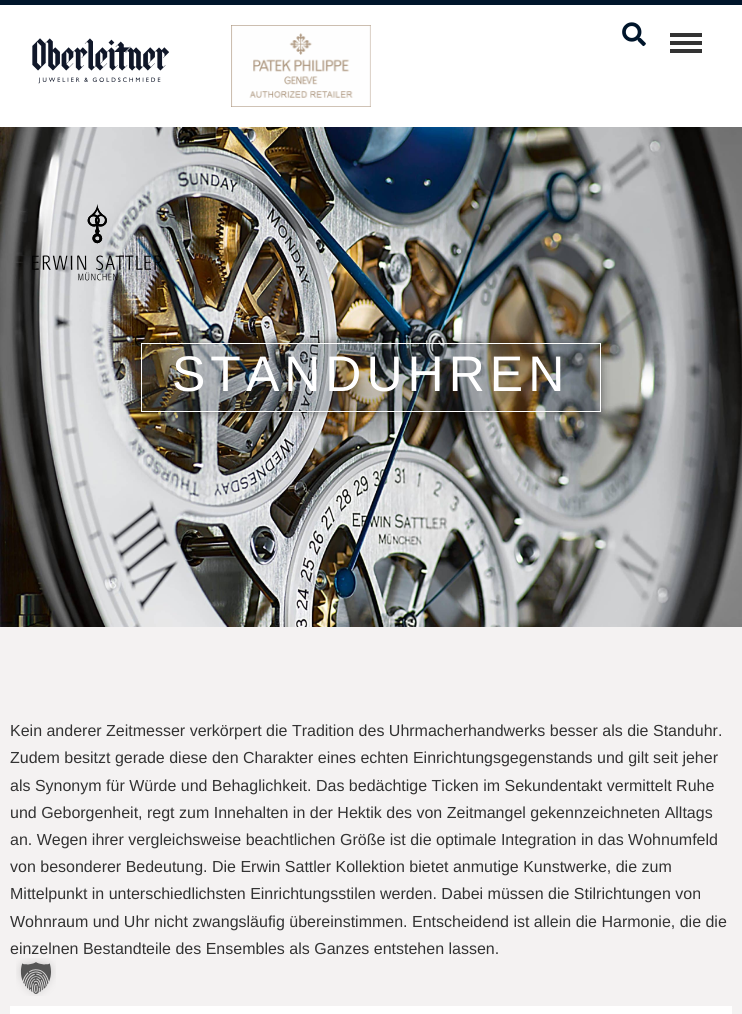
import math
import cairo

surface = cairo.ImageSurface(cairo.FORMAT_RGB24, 742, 1014)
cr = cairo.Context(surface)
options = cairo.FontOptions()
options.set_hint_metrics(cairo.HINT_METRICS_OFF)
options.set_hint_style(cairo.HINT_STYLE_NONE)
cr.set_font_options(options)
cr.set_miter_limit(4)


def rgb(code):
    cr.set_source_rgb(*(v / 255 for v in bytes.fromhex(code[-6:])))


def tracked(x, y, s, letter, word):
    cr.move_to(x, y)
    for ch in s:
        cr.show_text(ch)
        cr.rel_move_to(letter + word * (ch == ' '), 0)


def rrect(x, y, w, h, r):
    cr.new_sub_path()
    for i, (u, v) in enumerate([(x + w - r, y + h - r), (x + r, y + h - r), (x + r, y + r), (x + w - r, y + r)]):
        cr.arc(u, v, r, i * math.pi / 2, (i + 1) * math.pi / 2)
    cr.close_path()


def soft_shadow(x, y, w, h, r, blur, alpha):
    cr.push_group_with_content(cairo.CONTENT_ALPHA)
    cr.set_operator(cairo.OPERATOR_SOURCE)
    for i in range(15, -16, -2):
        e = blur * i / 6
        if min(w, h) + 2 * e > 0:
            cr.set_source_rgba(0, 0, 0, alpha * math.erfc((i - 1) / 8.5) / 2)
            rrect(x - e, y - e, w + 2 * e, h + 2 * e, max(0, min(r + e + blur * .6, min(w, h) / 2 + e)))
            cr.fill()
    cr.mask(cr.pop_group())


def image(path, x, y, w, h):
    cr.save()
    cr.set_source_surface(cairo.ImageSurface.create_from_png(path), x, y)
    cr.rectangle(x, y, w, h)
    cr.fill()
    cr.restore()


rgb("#f4f2f2")
cr.paint()
rgb("#ffffff")
cr.rectangle(0, 5, 742, 122)
cr.fill()
rgb("#00152b")
cr.rectangle(0, 0, 742, 5)
cr.fill()
image("img/1.png", 32, 38, 137, 46)
image("img/2.png", 231, 25, 140, 82)
image("img/3.png", 622, 22, 24, 25)
for x, y, w, h, color in [
    (670, 33, 32, 4, "#333333"),
    (670, 41, 32, 4, "#333333"),
    (670, 49, 32, 4, "#333333"),
]:
    rgb(color)
    cr.rectangle(x, y, w, h)
    cr.fill()
image("img/4.png", 0, 127, 742, 500)
image("img/5.png", 32, 204, 131, 77)
cr.save()
cr.set_fill_rule(cairo.FILL_RULE_EVEN_ODD)
cr.new_path()
cr.move_to(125, 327)
cr.line_to(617, 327)
cr.line_to(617, 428)
cr.line_to(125, 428)
cr.close_path()
cr.move_to(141, 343)
cr.line_to(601, 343)
cr.line_to(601, 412)
cr.line_to(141, 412)
cr.close_path()
cr.clip()
rgb("#000000")
soft_shadow(141, 343, 460, 69, 0, 5, 0.5)
cr.restore()
cr.set_source_rgba(0.125, 0.176, 0.227, 0.25)
cr.rectangle(141.5, 343.5, 459, 68)
cr.fill_preserve()
rgb("#ffffff")
cr.set_line_width(1)
cr.stroke()
cr.rectangle(10, 1006, 722, 8)
cr.fill()
image("img/6.png", 16, 958, 40, 38)
cr.select_font_face("Liberation Sans")
cr.set_font_size(50)
tracked(172, 391, "STANDUHREN", 5, 0)
cr.set_font_size(16)
rgb("#333333")
for x, y, s in [
    (10, 736, "Kein anderer Zeitmesser verkörpert die Tradition des Uhrmacherhandwerks besser als die Standuhr."),
    (10, 763, "Zudem besitzt gerade diese den Charakter eines echten Einrichtungsgegenstands und gilt seit jeher"),
    (10, 791, "als Synonym für Würde und Behaglichkeit. Das bedächtige Ticken im Sekundentakt vermittelt Ruhe"),
    (10, 818, "und Geborgenheit, regt zum Innehalten in der Hektik des von Zeitmangel gekennzeichneten Alltags"),
    (10, 845, "an. Wegen ihrer vergleichsweise beachtlichen Größe ist die optimale Integration in das Wohnumfeld"),
    (10, 872, "von besonderer Bedeutung. Die Erwin Sattler Kollektion bietet anmutige Kunstwerke, die zum"),
    (10, 899, "Mittelpunkt in unterschiedlichsten Einrichtungsstilen werden. Dabei müssen die Stilrichtungen von"),
    (10, 927, "Wohnraum und Uhr nicht zwangsläufig übereinstimmen. Entscheidend ist allein die Harmonie, die die"),
    (10, 954, "einzelnen Bestandteile des Ensembles als Ganzes entstehen lassen."),
]:
    cr.move_to(x, y)
    cr.show_text(s)
surface.write_to_png("page.png")
